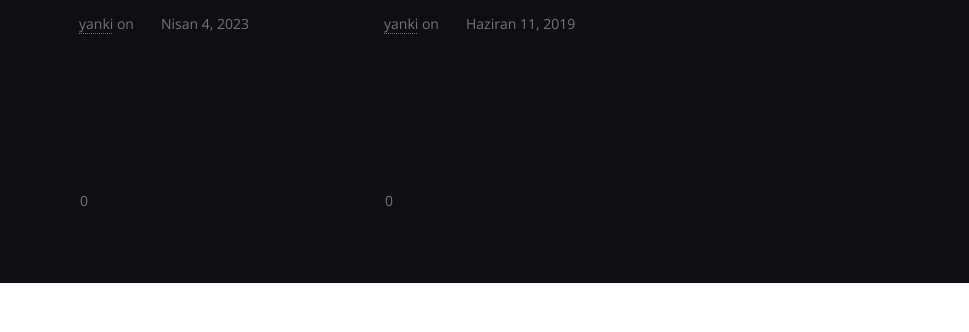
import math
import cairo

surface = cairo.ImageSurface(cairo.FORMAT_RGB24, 969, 332)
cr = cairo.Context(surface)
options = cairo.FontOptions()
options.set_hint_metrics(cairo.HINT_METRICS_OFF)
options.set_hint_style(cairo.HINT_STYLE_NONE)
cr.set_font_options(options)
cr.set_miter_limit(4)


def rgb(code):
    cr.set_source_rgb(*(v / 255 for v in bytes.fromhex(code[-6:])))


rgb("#0e0e13")
cr.paint()
cr.new_path()
cr.move_to(79, 33.5)
cr.line_to(113, 33.5)
rgb("#737373")
cr.set_line_width(1)
cr.set_dash([1, 1])
cr.stroke()
cr.new_path()
cr.move_to(384, 33.5)
cr.line_to(418, 33.5)
cr.stroke()
rgb("#ffffff")
cr.rectangle(0, 283, 969, 49)
cr.fill()
cr.select_font_face("Open Sans")
cr.set_font_size(14)
rgb("#737373")
for x, y, s in [
    (79, 29, "yanki on"),
    (161, 29, "Nisan 4, 2023"),
    (80, 206, "0"),
    (384, 29, "yanki on"),
    (466, 29, "Haziran 11, 2019"),
    (385, 206, "0"),
]:
    cr.move_to(x, y)
    cr.show_text(s)
surface.write_to_png("page.png")
